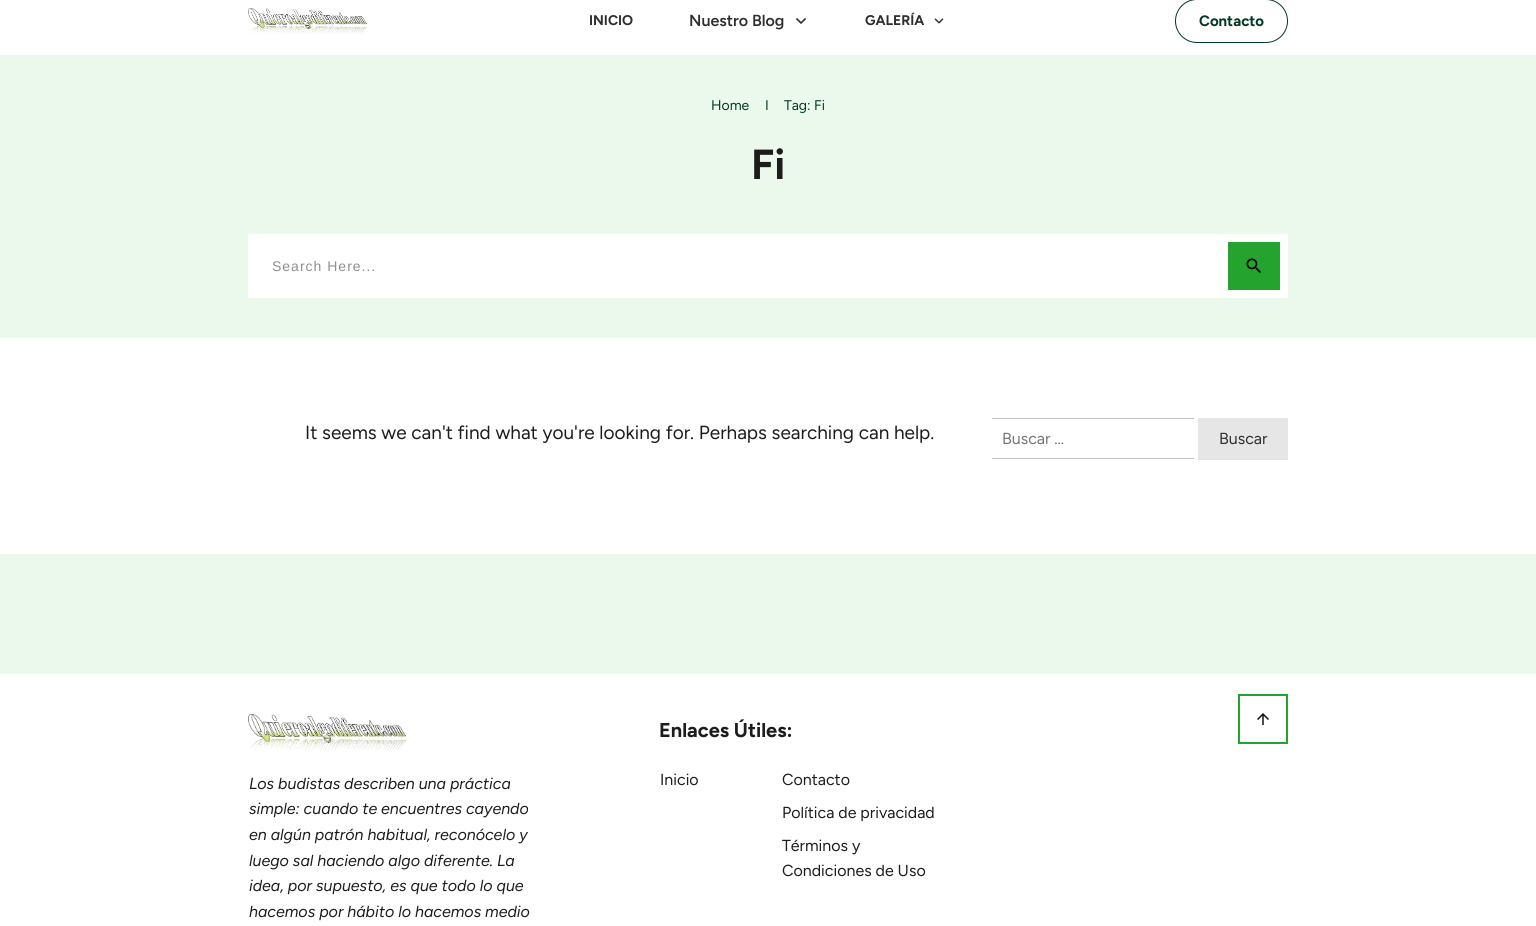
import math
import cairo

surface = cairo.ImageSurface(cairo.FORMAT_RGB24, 1536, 926)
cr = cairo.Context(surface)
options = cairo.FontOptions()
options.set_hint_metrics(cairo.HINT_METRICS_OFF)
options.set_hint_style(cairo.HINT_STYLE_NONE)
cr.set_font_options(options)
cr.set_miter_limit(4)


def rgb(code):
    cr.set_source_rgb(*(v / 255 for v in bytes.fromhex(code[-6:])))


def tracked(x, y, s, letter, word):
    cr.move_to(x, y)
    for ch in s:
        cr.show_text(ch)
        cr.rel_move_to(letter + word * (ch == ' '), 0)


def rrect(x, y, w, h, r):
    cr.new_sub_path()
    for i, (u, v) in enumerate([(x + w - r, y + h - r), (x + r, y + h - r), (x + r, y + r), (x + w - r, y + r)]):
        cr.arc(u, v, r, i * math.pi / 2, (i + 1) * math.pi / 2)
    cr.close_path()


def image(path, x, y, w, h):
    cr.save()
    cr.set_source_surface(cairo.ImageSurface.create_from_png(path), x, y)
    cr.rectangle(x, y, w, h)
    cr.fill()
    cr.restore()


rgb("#ffffff")
cr.paint()
image("img/1.png", 248, 8, 119, 26)
image("img/2.png", 796, 18, 10, 6)
image("img/3.png", 934, 18, 10, 6)
rrect(1175.5, -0.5, 112, 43, 21.5)
rgb("#043922")
cr.set_line_width(1)
cr.stroke()
for x, y, w, h, color in [
    (0, 55, 1536, 283, "#ebf9ec"),
    (248, 234, 1040, 64, "#ffffff"),
    (1228, 242, 52, 48, "#24a32e"),
]:
    rgb(color)
    cr.rectangle(x, y, w, h)
    cr.fill()
image("img/4.png", 1246, 258, 15, 15)
for x, y, w, h, color in [
    (992, 418, 202, 1, "#bfbfbf"),
    (992, 458, 202, 1, "#bfbfbf"),
    (1198, 418, 90, 42, "#e6e6e6"),
    (0, 554, 1536, 120, "#ebf9ec"),
]:
    rgb(color)
    cr.rectangle(x, y, w, h)
    cr.fill()
image("img/5.png", 248, 714, 158, 36)
cr.rectangle(1239, 695, 48, 48)
rgb("#24a32e")
cr.set_line_width(2)
cr.stroke()
image("img/6.png", 1257, 713, 12, 12)
cr.select_font_face("Figtree", cairo.FONT_SLANT_NORMAL, cairo.FONT_WEIGHT_BOLD)
cr.set_font_size(14)
rgb("#2e2e2e")
cr.move_to(589, 25)
cr.show_text("INICIO")
cr.select_font_face("Figtree SemiBold")
cr.set_font_size(16)
cr.move_to(689, 26)
cr.show_text("Nuestro Blog")
cr.select_font_face("Figtree", cairo.FONT_SLANT_NORMAL, cairo.FONT_WEIGHT_BOLD)
cr.set_font_size(14)
cr.move_to(865, 25)
cr.show_text("GALERÍA")
cr.set_font_size(15)
rgb("#043922")
cr.move_to(1199, 26)
cr.show_text("Contacto")
cr.select_font_face("Figtree")
cr.set_font_size(14)
for x, y, s in [
    (711, 110, "Home"),
    (765, 110, "I"),
    (784, 110, "Tag: Fi"),
]:
    cr.move_to(x, y)
    cr.show_text(s)
cr.select_font_face("Figtree", cairo.FONT_SLANT_NORMAL, cairo.FONT_WEIGHT_BOLD)
cr.set_font_size(42)
rgb("#1e1c1b")
cr.move_to(751, 179)
cr.show_text("Fi")
cr.select_font_face("Liberation Sans")
cr.set_font_size(14)
rgb("#8f8f8f")
tracked(272, 271, "Search Here...", 1, 0)
cr.select_font_face("Figtree")
cr.set_font_size(19)
rgb("#1e1c1b")
cr.move_to(305, 439)
cr.show_text("It seems we can't find what you're looking for. Perhaps searching can help.")
cr.set_font_size(16)
rgb("#757575")
cr.move_to(1002, 444)
cr.show_text("Buscar …")
rgb("#2e2e2e")
cr.move_to(1219, 444)
cr.show_text("Buscar")
cr.select_font_face("Figtree", cairo.FONT_SLANT_ITALIC)
rgb("#1e1c1b")
for x, y, s in [
    (249, 789, "Los budistas describen una práctica"),
    (249, 814, "simple: cuando te encuentres cayendo"),
    (249, 840, "en algún patrón habitual, reconócelo y"),
    (249, 866, "luego sal haciendo algo diferente. La"),
    (249, 891, "idea, por supuesto, es que todo lo que"),
    (249, 917, "hacemos por hábito lo hacemos medio"),
]:
    cr.move_to(x, y)
    cr.show_text(s)
cr.select_font_face("Figtree", cairo.FONT_SLANT_NORMAL, cairo.FONT_WEIGHT_BOLD)
cr.set_font_size(20)
cr.move_to(659, 737)
cr.show_text("Enlaces Útiles:")
cr.select_font_face("Figtree")
cr.set_font_size(16)
for x, y, s in [
    (660, 785, "Inicio"),
    (782, 785, "Contacto"),
    (782, 818, "Política de privacidad"),
    (782, 851, "Términos y"),
    (782, 876, "Condiciones de Uso"),
]:
    cr.move_to(x, y)
    cr.show_text(s)
surface.write_to_png("page.png")
